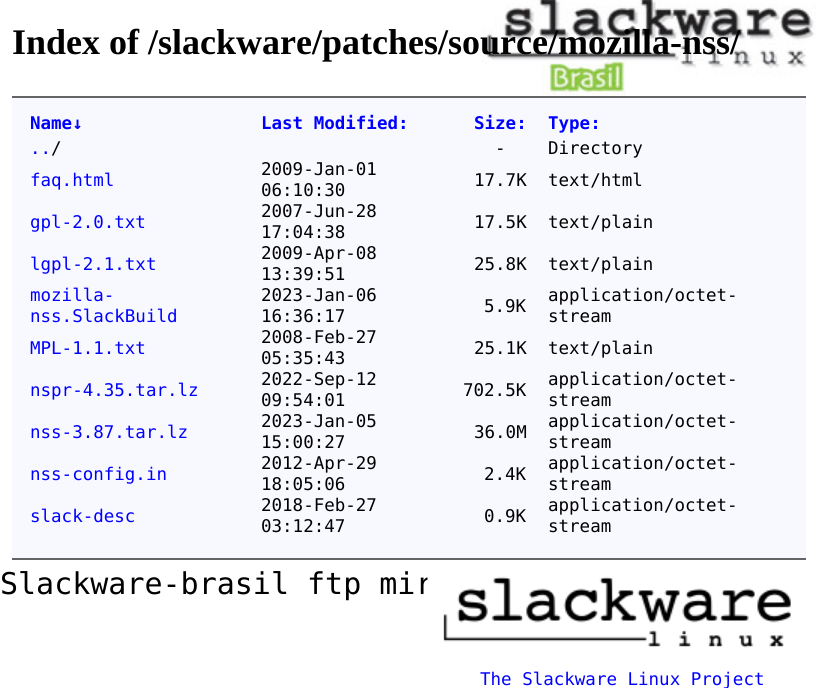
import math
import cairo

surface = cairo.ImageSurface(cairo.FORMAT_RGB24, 817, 688)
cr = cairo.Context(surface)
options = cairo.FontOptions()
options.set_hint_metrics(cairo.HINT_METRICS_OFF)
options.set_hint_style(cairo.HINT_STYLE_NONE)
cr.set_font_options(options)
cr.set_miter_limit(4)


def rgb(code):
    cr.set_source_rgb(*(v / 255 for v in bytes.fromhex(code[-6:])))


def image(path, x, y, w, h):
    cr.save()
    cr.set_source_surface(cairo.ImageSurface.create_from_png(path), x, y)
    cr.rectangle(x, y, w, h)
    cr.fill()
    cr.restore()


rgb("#ffffff")
cr.paint()
image("img/1.png", 482, 0, 334, 99)
for x, y, w, h, color in [
    (12, 98, 794, 460, "#f8f8ff"),
    (12, 96, 794, 2, "#646464"),
    (12, 558, 794, 2, "#646464"),
]:
    rgb(color)
    cr.rectangle(x, y, w, h)
    cr.fill()
cr.select_font_face("Liberation Serif", cairo.FONT_SLANT_NORMAL, cairo.FONT_WEIGHT_BOLD)
cr.set_font_size(36)
rgb("#000000")
cr.move_to(12, 54)
cr.show_text("Index of /slackware/patches/source/mozilla-nss/")
cr.select_font_face("DejaVu Sans Mono", cairo.FONT_SLANT_NORMAL, cairo.FONT_WEIGHT_BOLD)
cr.set_font_size(17.5)
rgb("#0000ff")
for x, y, s in [
    (30, 129, "Name↓"),
    (261, 129, "Last Modified:"),
    (474, 129, "Size:"),
    (548, 129, "Type:"),
]:
    cr.move_to(x, y)
    cr.show_text(s)
cr.select_font_face("DejaVu Sans Mono")
cr.move_to(30, 154)
cr.show_text("..")
rgb("#000000")
for x, y, s in [
    (51, 154, "/"),
    (495, 154, "-"),
    (548, 154, "Directory"),
]:
    cr.move_to(x, y)
    cr.show_text(s)
rgb("#0000ff")
cr.move_to(30, 186)
cr.show_text("faq.html")
rgb("#000000")
for x, y, s in [
    (261, 175, "2009-Jan-01"),
    (261, 196, "06:10:30"),
    (474, 186, "17.7K"),
    (548, 186, "text/html"),
]:
    cr.move_to(x, y)
    cr.show_text(s)
rgb("#0000ff")
cr.move_to(30, 228)
cr.show_text("gpl-2.0.txt")
rgb("#000000")
for x, y, s in [
    (261, 217, "2007-Jun-28"),
    (261, 238, "17:04:38"),
    (474, 228, "17.5K"),
    (548, 228, "text/plain"),
]:
    cr.move_to(x, y)
    cr.show_text(s)
rgb("#0000ff")
cr.move_to(30, 270)
cr.show_text("lgpl-2.1.txt")
rgb("#000000")
for x, y, s in [
    (261, 259, "2009-Apr-08"),
    (261, 280, "13:39:51"),
    (474, 270, "25.8K"),
    (548, 270, "text/plain"),
]:
    cr.move_to(x, y)
    cr.show_text(s)
rgb("#0000ff")
cr.move_to(30, 301)
cr.show_text("mozilla-")
cr.move_to(30, 322)
cr.show_text("nss.SlackBuild")
rgb("#000000")
for x, y, s in [
    (261, 301, "2023-Jan-06"),
    (261, 322, "16:36:17"),
    (484, 312, "5.9K"),
    (548, 301, "application/octet-"),
    (548, 322, "stream"),
]:
    cr.move_to(x, y)
    cr.show_text(s)
rgb("#0000ff")
cr.move_to(30, 354)
cr.show_text("MPL-1.1.txt")
rgb("#000000")
for x, y, s in [
    (261, 343, "2008-Feb-27"),
    (261, 364, "05:35:43"),
    (474, 354, "25.1K"),
    (548, 354, "text/plain"),
]:
    cr.move_to(x, y)
    cr.show_text(s)
rgb("#0000ff")
cr.move_to(30, 396)
cr.show_text("nspr-4.35.tar.lz")
rgb("#000000")
for x, y, s in [
    (261, 385, "2022-Sep-12"),
    (261, 406, "09:54:01"),
    (463, 396, "702.5K"),
    (548, 385, "application/octet-"),
    (548, 406, "stream"),
]:
    cr.move_to(x, y)
    cr.show_text(s)
rgb("#0000ff")
cr.move_to(30, 438)
cr.show_text("nss-3.87.tar.lz")
rgb("#000000")
for x, y, s in [
    (261, 427, "2023-Jan-05"),
    (261, 448, "15:00:27"),
    (474, 438, "36.0M"),
    (548, 427, "application/octet-"),
    (548, 448, "stream"),
]:
    cr.move_to(x, y)
    cr.show_text(s)
rgb("#0000ff")
cr.move_to(30, 480)
cr.show_text("nss-config.in")
rgb("#000000")
for x, y, s in [
    (261, 469, "2012-Apr-29"),
    (261, 490, "18:05:06"),
    (484, 480, "2.4K"),
    (548, 469, "application/octet-"),
    (548, 490, "stream"),
]:
    cr.move_to(x, y)
    cr.show_text(s)
rgb("#0000ff")
cr.move_to(30, 522)
cr.show_text("slack-desc")
rgb("#000000")
for x, y, s in [
    (261, 511, "2018-Feb-27"),
    (261, 532, "03:12:47"),
    (484, 522, "0.9K"),
    (548, 511, "application/octet-"),
    (548, 532, "stream"),
]:
    cr.move_to(x, y)
    cr.show_text(s)
cr.set_font_size(30)
cr.move_to(0, 594)
cr.show_text("Slackware-brasil ftp mir")
image("img/2.png", 427, 576, 364, 72)
cr.set_font_size(17.5)
rgb("#0000ff")
cr.move_to(480, 685)
cr.show_text("The Slackware Linux Project")
surface.write_to_png("page.png")
